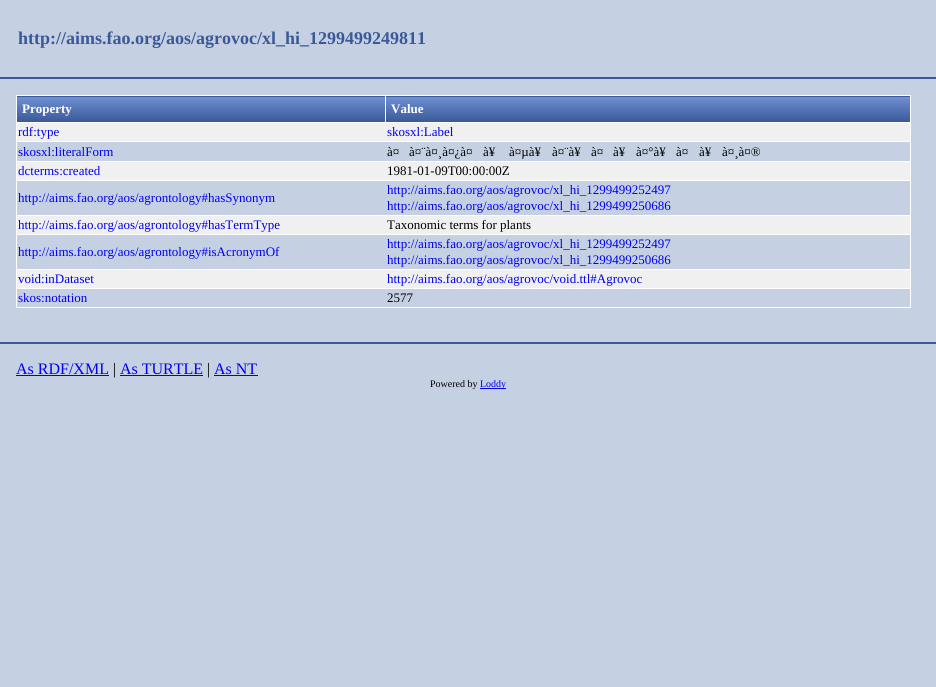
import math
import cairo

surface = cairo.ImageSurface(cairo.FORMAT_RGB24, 936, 687)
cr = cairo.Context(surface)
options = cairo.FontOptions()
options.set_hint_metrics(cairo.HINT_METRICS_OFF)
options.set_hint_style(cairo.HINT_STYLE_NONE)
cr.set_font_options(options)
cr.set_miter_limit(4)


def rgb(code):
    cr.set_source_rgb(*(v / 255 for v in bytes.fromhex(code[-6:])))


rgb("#c5d1e2")
cr.paint()
for x, y, w, h, color in [
    (0, 77, 936, 2, "#3b5998"),
    (16, 95, 895, 1, "#ffffff"),
    (910, 95, 1, 213, "#ffffff"),
    (16, 307, 895, 1, "#ffffff"),
    (16, 95, 1, 213, "#ffffff"),
]:
    rgb(color)
    cr.rectangle(x, y, w, h)
    cr.fill()
gradient = cairo.LinearGradient(202, 72, 202, 97)
gradient.add_color_stop_rgba(0, 0.431, 0.561, 0.827, 1)
gradient.add_color_stop_rgba(1, 0.231, 0.349, 0.596, 1)
cr.set_source(gradient)
cr.rectangle(17, 96, 369, 1)
cr.fill()
gradient = cairo.LinearGradient(202, 97, 202, 122)
gradient.add_color_stop_rgba(0, 0.431, 0.561, 0.827, 1)
gradient.add_color_stop_rgba(1, 0.231, 0.349, 0.596, 1)
cr.set_source(gradient)
cr.rectangle(17, 97, 368, 25)
cr.fill()
gradient = cairo.LinearGradient(648, 72, 648, 97)
gradient.add_color_stop_rgba(0, 0.431, 0.561, 0.827, 1)
gradient.add_color_stop_rgba(1, 0.231, 0.349, 0.596, 1)
cr.set_source(gradient)
cr.rectangle(386, 96, 524, 1)
cr.fill()
gradient = cairo.LinearGradient(648, 97, 648, 122)
gradient.add_color_stop_rgba(0, 0.431, 0.561, 0.827, 1)
gradient.add_color_stop_rgba(1, 0.231, 0.349, 0.596, 1)
cr.set_source(gradient)
cr.rectangle(386, 97, 524, 25)
cr.fill()
for x, y, w, h, color in [
    (16, 122, 895, 1, "#ffffff"),
    (385, 95, 1, 28, "#ffffff"),
    (17, 123, 893, 18, "#f0f0f0"),
    (16, 141, 895, 1, "#ffffff"),
    (17, 162, 893, 18, "#f0f0f0"),
    (16, 161, 895, 1, "#ffffff"),
    (16, 180, 895, 1, "#ffffff"),
    (17, 216, 893, 18, "#f0f0f0"),
    (16, 215, 895, 1, "#ffffff"),
    (16, 234, 895, 1, "#ffffff"),
    (17, 270, 893, 18, "#f0f0f0"),
    (16, 269, 895, 1, "#ffffff"),
    (16, 288, 895, 1, "#ffffff"),
    (0, 342, 936, 2, "#3b5998"),
    (16, 375, 93, 1, "#0000ee"),
    (120, 375, 83, 1, "#0000ee"),
    (214, 375, 44, 1, "#0000ee"),
    (480, 388, 26, 1, "#0000ee"),
]:
    rgb(color)
    cr.rectangle(x, y, w, h)
    cr.fill()
cr.select_font_face("Liberation Serif", cairo.FONT_SLANT_NORMAL, cairo.FONT_WEIGHT_BOLD)
cr.set_font_size(18)
rgb("#3b5998")
cr.move_to(18, 44)
cr.show_text("http://aims.fao.org/aos/agrovoc/xl_hi_1299499249811")
cr.set_font_size(13)
rgb("#ffffff")
cr.move_to(22, 113)
cr.show_text("Property")
cr.move_to(391, 113)
cr.show_text("Value")
cr.select_font_face("Liberation Serif")
rgb("#0000ee")
for x, y, s in [
    (18, 136, "rdf:type"),
    (387, 136, "skosxl:Label"),
    (18, 156, "skosxl:literalForm"),
]:
    cr.move_to(x, y)
    cr.show_text(s)
rgb("#000000")
for x, y, s in [
    (387, 156, "à¤"),
    (409, 156, "à¤¨à¤¸à¤¿à¤"),
    (483, 156, "à¥"),
    (509, 156, "à¤µà¥"),
    (552, 156, "à¤¨à¥"),
    (591, 156, "à¤"),
    (613, 156, "à¥"),
    (636, 156, "à¤°à¥"),
    (676, 156, "à¤"),
    (699, 156, "à¥"),
    (722, 156, "à¤¸à¤®"),
]:
    cr.move_to(x, y)
    cr.show_text(s)
rgb("#0000ee")
cr.move_to(18, 175)
cr.show_text("dcterms:created")
rgb("#000000")
cr.move_to(387, 175)
cr.show_text("1981-01-09T00:00:00Z")
rgb("#0000ee")
for x, y, s in [
    (18, 202, "http://aims.fao.org/aos/agrontology#hasSynonym"),
    (387, 194, "http://aims.fao.org/aos/agrovoc/xl_hi_1299499252497"),
    (387, 210, "http://aims.fao.org/aos/agrovoc/xl_hi_1299499250686"),
    (18, 229, "http://aims.fao.org/aos/agrontology#hasTermType"),
]:
    cr.move_to(x, y)
    cr.show_text(s)
rgb("#000000")
cr.move_to(387, 229)
cr.show_text("Taxonomic terms for plants")
rgb("#0000ee")
for x, y, s in [
    (18, 256, "http://aims.fao.org/aos/agrontology#isAcronymOf"),
    (387, 248, "http://aims.fao.org/aos/agrovoc/xl_hi_1299499252497"),
    (387, 264, "http://aims.fao.org/aos/agrovoc/xl_hi_1299499250686"),
    (18, 283, "void:inDataset"),
    (387, 283, "http://aims.fao.org/aos/agrovoc/void.ttl#Agrovoc"),
    (18, 302, "skos:notation"),
]:
    cr.move_to(x, y)
    cr.show_text(s)
rgb("#000000")
cr.move_to(387, 302)
cr.show_text("2577")
cr.set_font_size(16)
rgb("#0000ee")
cr.move_to(16, 374)
cr.show_text("As RDF/XML")
rgb("#000000")
cr.move_to(113, 374)
cr.show_text("|")
rgb("#0000ee")
cr.move_to(120, 374)
cr.show_text("As TURTLE")
rgb("#000000")
cr.move_to(207, 374)
cr.show_text("|")
rgb("#0000ee")
cr.move_to(214, 374)
cr.show_text("As NT")
cr.set_font_size(10)
rgb("#000000")
cr.move_to(430, 387)
cr.show_text("Powered by")
rgb("#0000ee")
cr.move_to(480, 387)
cr.show_text("Loddy")
surface.write_to_png("page.png")
